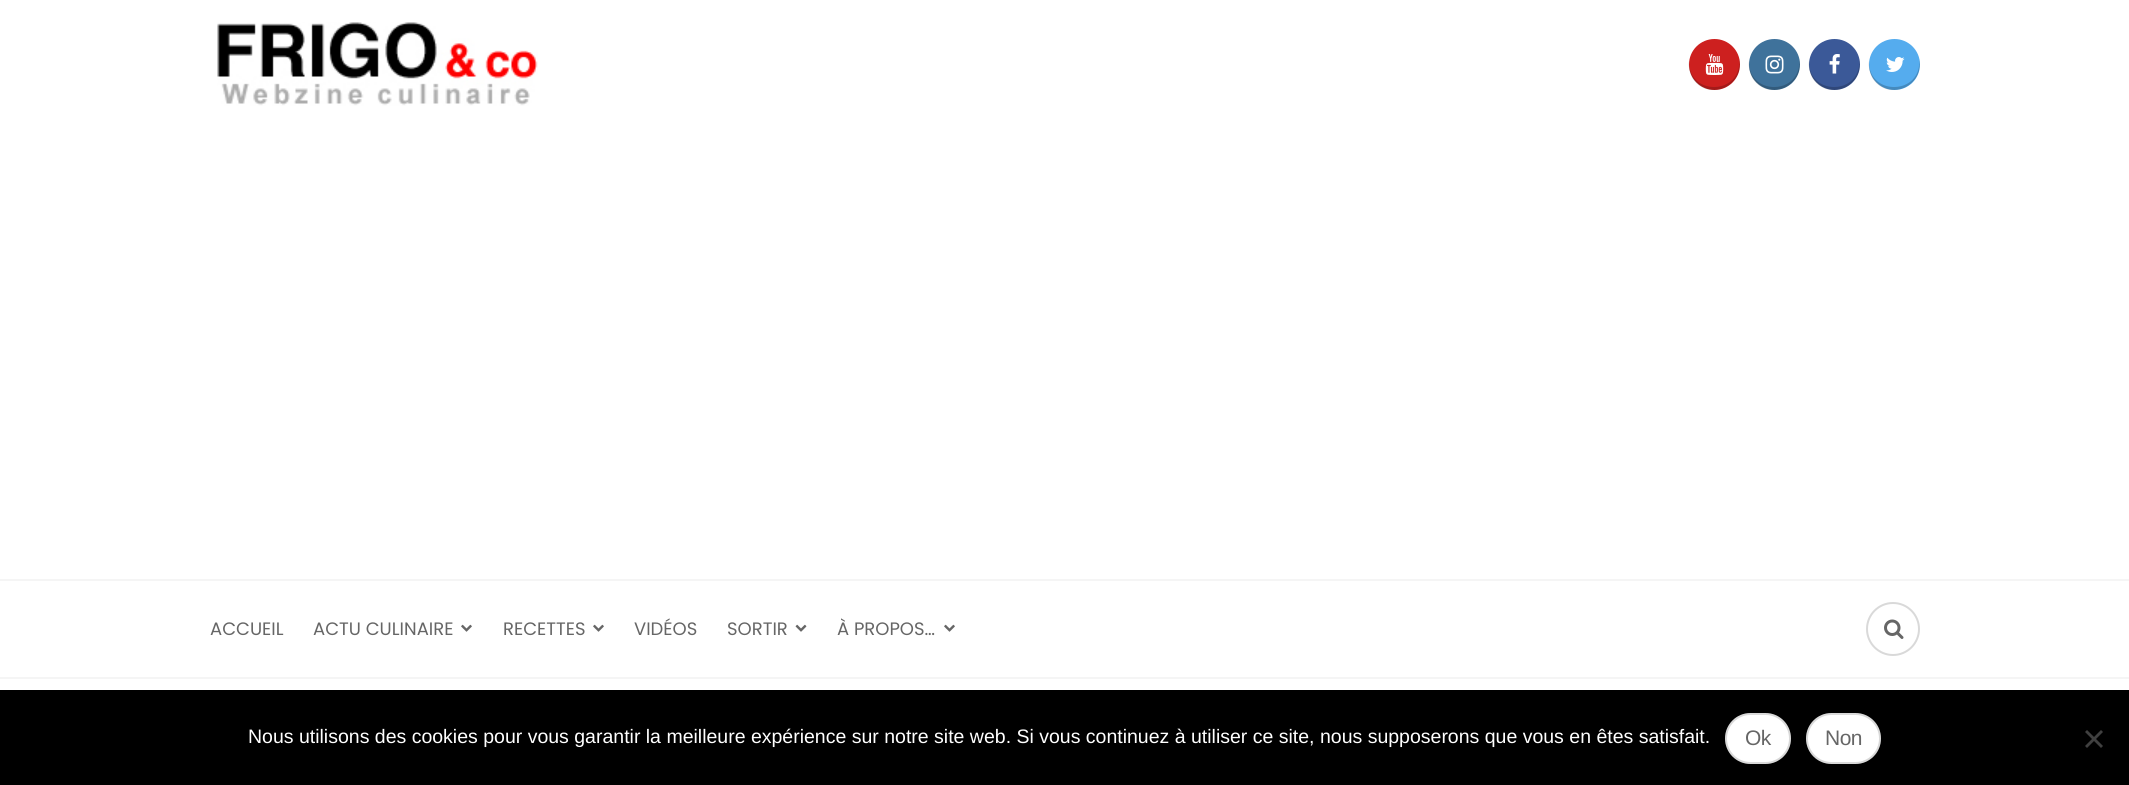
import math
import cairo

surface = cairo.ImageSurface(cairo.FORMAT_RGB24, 2129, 785)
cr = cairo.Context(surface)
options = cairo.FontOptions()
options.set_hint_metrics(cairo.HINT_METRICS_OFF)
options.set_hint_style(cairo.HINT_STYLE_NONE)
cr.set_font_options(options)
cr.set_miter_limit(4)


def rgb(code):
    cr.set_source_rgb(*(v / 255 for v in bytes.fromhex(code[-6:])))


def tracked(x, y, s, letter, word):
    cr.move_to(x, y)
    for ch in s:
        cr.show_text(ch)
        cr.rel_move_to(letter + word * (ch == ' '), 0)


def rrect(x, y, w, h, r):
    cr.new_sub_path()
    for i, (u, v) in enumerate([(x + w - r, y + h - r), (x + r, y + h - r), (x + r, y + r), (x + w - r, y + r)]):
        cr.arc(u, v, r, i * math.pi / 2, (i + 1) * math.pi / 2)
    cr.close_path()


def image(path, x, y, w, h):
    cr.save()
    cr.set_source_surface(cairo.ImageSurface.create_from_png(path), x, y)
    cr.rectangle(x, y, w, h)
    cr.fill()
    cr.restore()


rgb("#ffffff")
cr.paint()
image("img/1.png", 217, 22, 321, 84)
rgb("#cd201f")
cr.arc(1714.5, 64.5, 25.5, 0, 2 * math.pi)
cr.fill()
cr.set_source_rgba(0, 0, 0, 0.2)
cr.new_path()
cr.move_to(1739, 59)
cr.curve_to(1743, 95, 1688, 97, 1689, 61)
cr.curve_to(1688, 67, 1690, 74, 1693, 79)
cr.curve_to(1709, 102, 1745, 86, 1739, 59)
cr.close_path()
cr.fill()
image("img/2.png", 1705, 54, 19, 21)
rgb("#3f729b")
cr.arc(1774.5, 64.5, 25.5, 0, 2 * math.pi)
cr.fill()
cr.set_source_rgba(0, 0, 0, 0.2)
cr.new_path()
cr.move_to(1799, 59)
cr.curve_to(1803, 95, 1748, 97, 1749, 61)
cr.curve_to(1748, 67, 1750, 74, 1753, 79)
cr.curve_to(1769, 102, 1805, 86, 1799, 59)
cr.close_path()
cr.fill()
image("img/3.png", 1765, 55, 19, 19)
rgb("#3b5998")
cr.arc(1834.5, 64.5, 25.5, 0, 2 * math.pi)
cr.fill()
cr.set_source_rgba(0, 0, 0, 0.2)
cr.new_path()
cr.move_to(1859, 59)
cr.curve_to(1863, 95, 1808, 97, 1809, 61)
cr.curve_to(1808, 67, 1810, 74, 1813, 79)
cr.curve_to(1829, 102, 1865, 86, 1859, 59)
cr.close_path()
cr.fill()
image("img/4.png", 1829, 54, 11, 20)
rgb("#55acee")
cr.arc(1894.5, 64.5, 25.5, 0, 2 * math.pi)
cr.fill()
cr.set_source_rgba(0, 0, 0, 0.2)
cr.new_path()
cr.move_to(1919, 59)
cr.curve_to(1923, 95, 1868, 97, 1869, 61)
cr.curve_to(1868, 67, 1870, 74, 1873, 79)
cr.curve_to(1889, 102, 1925, 86, 1919, 59)
cr.close_path()
cr.fill()
image("img/5.png", 1886, 57, 19, 15)
rgb("#f5f5f5")
cr.rectangle(0, 579, 2129, 2)
cr.fill()
cr.rectangle(0, 677, 2129, 2)
cr.fill()
image("img/6.png", 461, 624, 11, 8)
image("img/6.png", 593, 624, 11, 8)
image("img/7.png", 795, 624, 12, 8)
image("img/6.png", 944, 624, 11, 8)
cr.arc(1893, 629, 26, 0, 2 * math.pi)
rgb("#d9d9d9")
cr.stroke()
image("img/8.png", 1884, 619, 20, 20)
rgb("#000000")
cr.rectangle(0, 690, 2129, 95)
cr.fill()
rgb("#ffffff")
rrect(1725, 713, 66, 51, 25.5)
cr.fill()
rrect(1726, 714, 64, 49, 24.5)
cr.set_source_rgba(0, 0, 0, 0.15)
cr.stroke()
rgb("#ffffff")
rrect(1806, 713, 75, 51, 25.5)
cr.fill()
rrect(1807, 714, 73, 49, 24.5)
cr.set_source_rgba(0, 0, 0, 0.15)
cr.stroke()
rgb("#404040")
cr.new_path()
cr.move_to(2101, 730)
cr.line_to(2103, 732)
cr.line_to(2087, 748)
cr.line_to(2085, 746)
cr.close_path()
cr.fill()
cr.new_path()
cr.move_to(2085, 732)
cr.line_to(2087, 730)
cr.line_to(2103, 746)
cr.line_to(2101, 748)
cr.close_path()
cr.fill()
cr.select_font_face("Poppins")
cr.set_font_size(18)
rgb("#666666")
for x, y, s in [
    (210, 635, "ACCUEIL"),
    (313, 635, "ACTU CULINAIRE"),
    (503, 635, "RECETTES"),
    (634, 635, "VIDÉOS"),
    (727, 635, "SORTIR"),
    (837, 635, "À PROPOS…"),
]:
    cr.move_to(x, y)
    cr.show_text(s)
cr.select_font_face("Liberation Sans")
cr.set_font_size(19.5)
rgb("#ffffff")
cr.move_to(248, 743)
cr.show_text("Nous utilisons des cookies pour vous garantir la meilleure expérience sur notre site web. Si vous continuez à utiliser ce site, nous supposerons que vous en êtes satisfait.")
cr.set_font_size(21)
rgb("#666666")
tracked(1745, 745, "Ok", -0.5, 0)
tracked(1825, 745, "Non", -0.5, 0)
surface.write_to_png("page.png")
